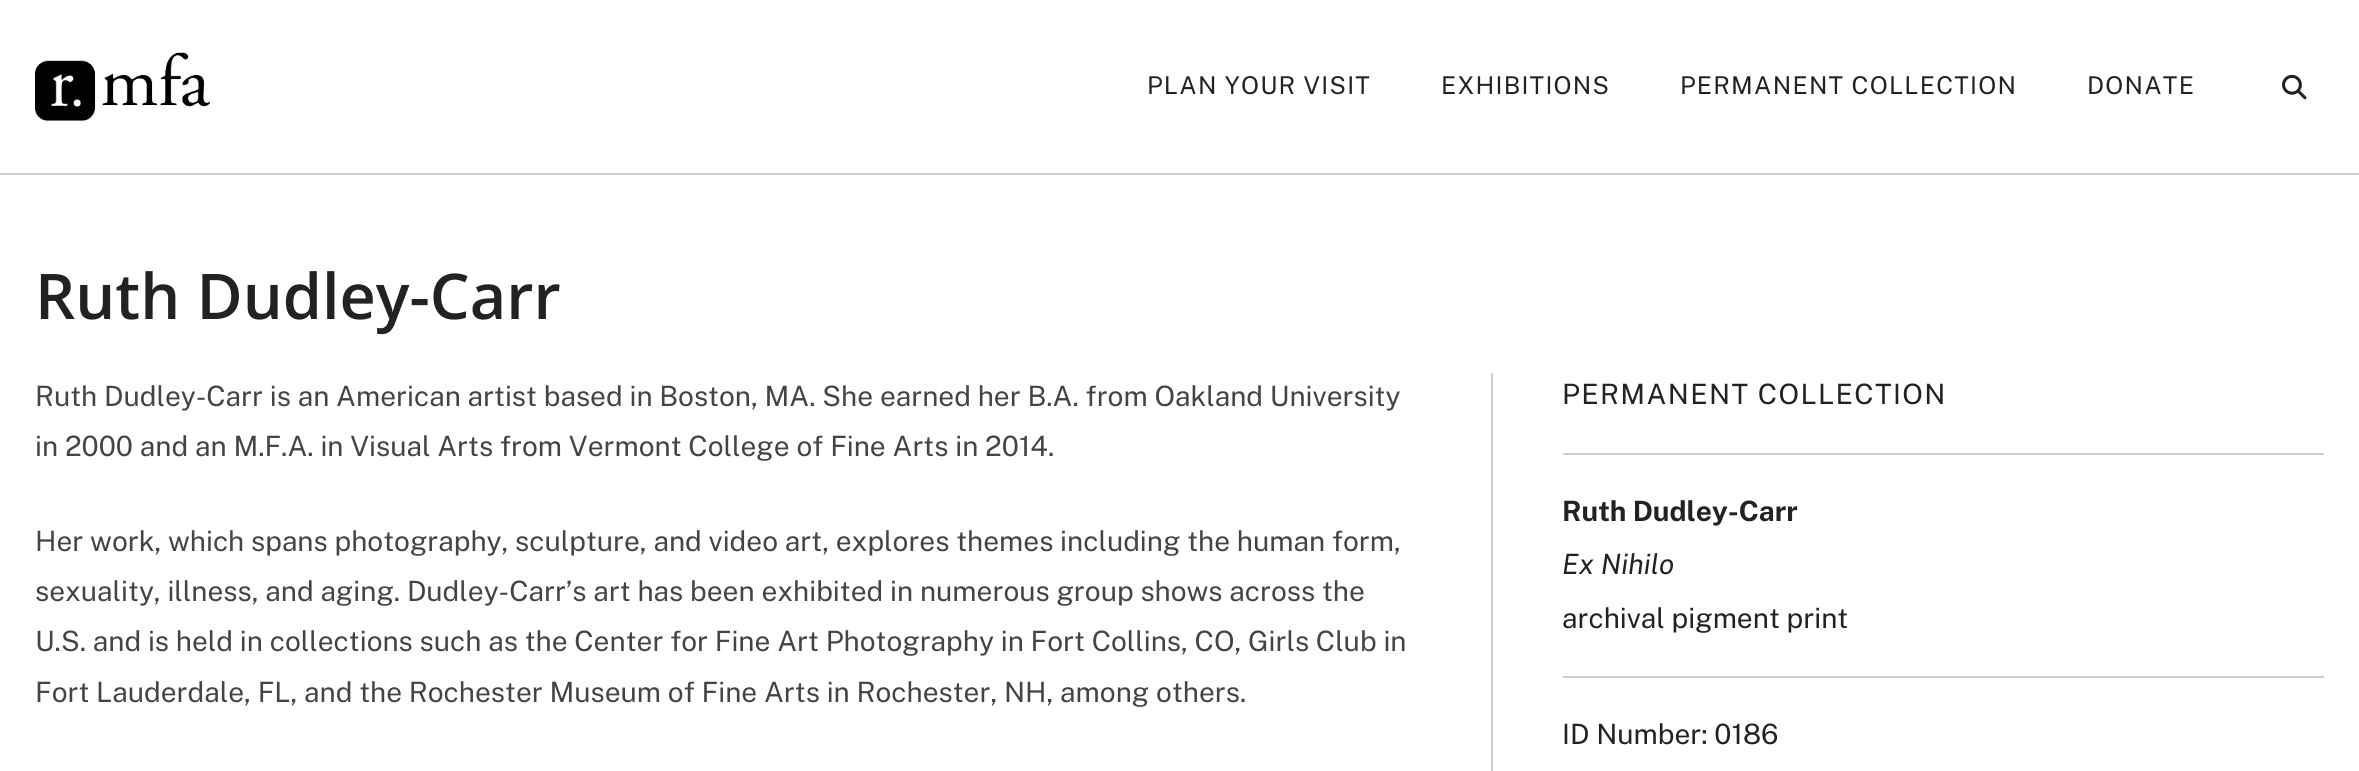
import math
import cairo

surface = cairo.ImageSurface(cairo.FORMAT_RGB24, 2359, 771)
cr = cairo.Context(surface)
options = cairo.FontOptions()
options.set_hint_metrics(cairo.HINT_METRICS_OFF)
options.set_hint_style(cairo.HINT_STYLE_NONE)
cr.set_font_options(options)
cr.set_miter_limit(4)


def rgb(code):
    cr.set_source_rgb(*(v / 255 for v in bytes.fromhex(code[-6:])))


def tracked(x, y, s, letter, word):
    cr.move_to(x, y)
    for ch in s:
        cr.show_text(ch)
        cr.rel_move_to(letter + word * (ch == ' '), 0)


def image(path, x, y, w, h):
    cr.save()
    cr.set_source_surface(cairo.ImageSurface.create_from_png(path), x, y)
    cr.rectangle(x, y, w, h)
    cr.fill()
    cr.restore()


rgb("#ffffff")
cr.paint()
rgb("#cccccc")
cr.rectangle(0, 173, 2359, 2)
cr.fill()
image("img/1.png", 35, 52, 175, 69)
image("img/2.png", 2282, 74, 25, 26)
for x, y, w, h, color in [
    (1491, 373, 2, 398, "#cccccc"),
    (1563, 453, 761, 2, "#cccccc"),
    (1563, 676, 761, 2, "#cccccc"),
]:
    rgb(color)
    cr.rectangle(x, y, w, h)
    cr.fill()
cr.select_font_face("Public Sans")
cr.set_font_size(24.5)
rgb("#222222")
for x, y, s in [
    (1147, 94, "PLAN YOUR VISIT"),
    (1441, 94, "EXHIBITIONS"),
    (1680, 94, "PERMANENT COLLECTION"),
    (2087, 94, "DONATE"),
]:
    tracked(x, y, s, 1.25, 0)
cr.select_font_face("Open Sans SemiBold")
cr.set_font_size(63)
cr.move_to(35, 319)
cr.show_text("Ruth Dudley-Carr")
cr.select_font_face("Public Sans")
cr.set_font_size(28)
rgb("#444444")
for x, y, s in [
    (35, 406, "Ruth Dudley-Carr is an American artist based in Boston, MA. She earned her B.A. from Oakland University"),
    (35, 456, "in 2000 and an M.F.A. in Visual Arts from Vermont College of Fine Arts in 2014."),
    (35, 551, "Her work, which spans photography, sculpture, and video art, explores themes including the human form,"),
    (35, 601, "sexuality, illness, and aging. Dudley-Carr’s art has been exhibited in numerous group shows across the"),
    (35, 651, "U.S. and is held in collections such as the Center for Fine Art Photography in Fort Collins, CO, Girls Club in"),
    (35, 702, "Fort Lauderdale, FL, and the Rochester Museum of Fine Arts in Rochester, NH, among others."),
]:
    cr.move_to(x, y)
    cr.show_text(s)
rgb("#222222")
tracked(1562, 404, "PERMANENT COLLECTION", 1.4, 0)
cr.select_font_face("Public Sans", cairo.FONT_SLANT_NORMAL, cairo.FONT_WEIGHT_BOLD)
cr.move_to(1562, 521)
cr.show_text("Ruth Dudley-Carr")
cr.select_font_face("Public Sans", cairo.FONT_SLANT_ITALIC)
cr.move_to(1562, 574)
cr.show_text("Ex Nihilo")
cr.select_font_face("Public Sans")
cr.move_to(1562, 628)
cr.show_text("archival pigment print")
cr.move_to(1562, 744)
cr.show_text("ID Number: 0186")
surface.write_to_png("page.png")
